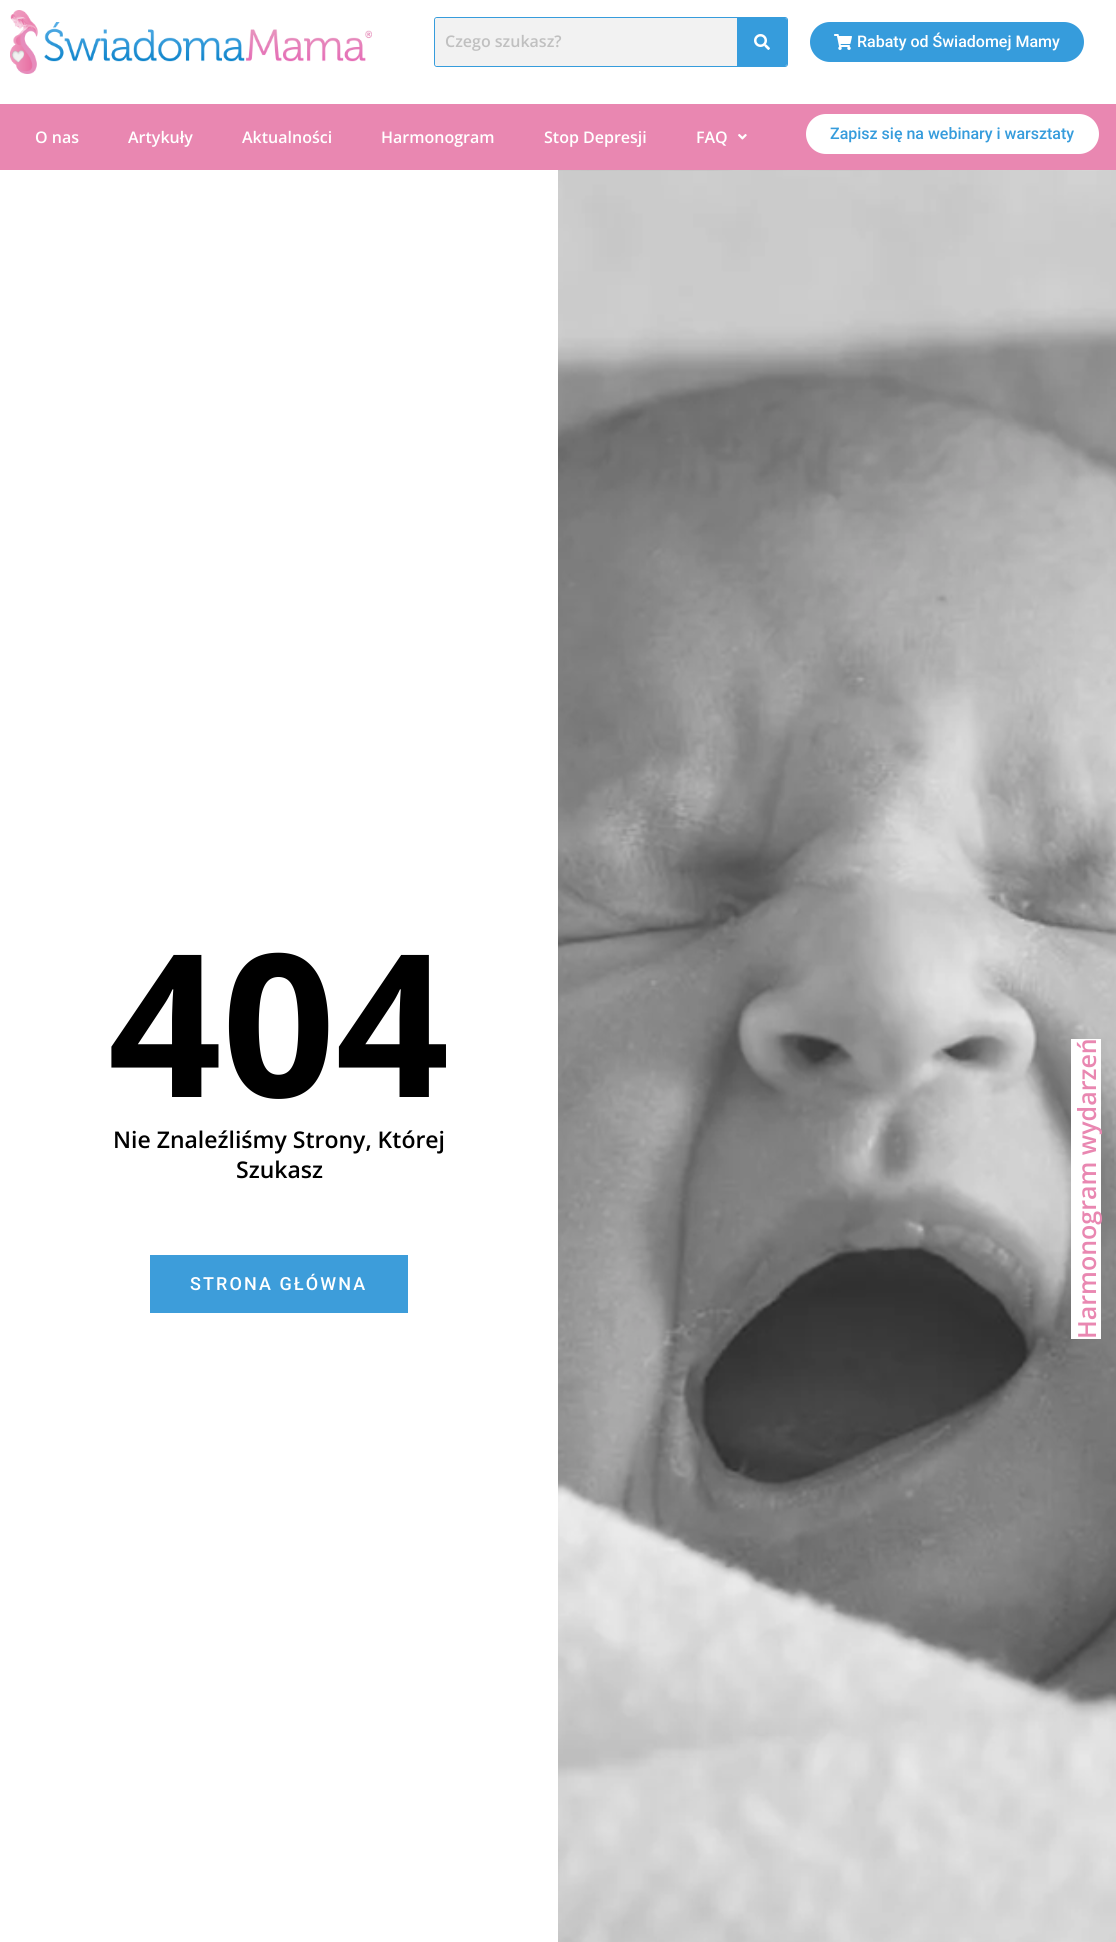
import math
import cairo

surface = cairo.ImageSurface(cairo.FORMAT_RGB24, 1116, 1942)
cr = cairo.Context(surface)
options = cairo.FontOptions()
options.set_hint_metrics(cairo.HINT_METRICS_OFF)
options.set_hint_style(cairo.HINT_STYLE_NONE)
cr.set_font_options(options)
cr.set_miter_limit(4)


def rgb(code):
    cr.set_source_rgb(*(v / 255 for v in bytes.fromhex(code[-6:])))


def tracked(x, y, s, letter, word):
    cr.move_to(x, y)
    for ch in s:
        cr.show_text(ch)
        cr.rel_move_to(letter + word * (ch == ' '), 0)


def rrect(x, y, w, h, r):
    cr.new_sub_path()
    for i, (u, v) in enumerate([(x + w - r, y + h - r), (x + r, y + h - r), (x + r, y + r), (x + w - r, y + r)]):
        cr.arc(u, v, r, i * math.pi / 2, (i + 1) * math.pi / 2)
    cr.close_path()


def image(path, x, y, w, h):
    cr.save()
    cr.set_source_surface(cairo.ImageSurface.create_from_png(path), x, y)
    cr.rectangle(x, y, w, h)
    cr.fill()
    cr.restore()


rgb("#ffffff")
cr.paint()
image("img/1.png", 10, 10, 362, 64)
rrect(434.5, 17.5, 353, 49, 2.5)
rgb("#369cdc")
cr.set_line_width(1)
cr.stroke()
rgb("#f2f2f2")
cr.new_path()
cr.move_to(437, 18)
cr.line_to(737, 18)
cr.line_to(737, 66)
cr.line_to(437, 66)
cr.curve_to(436, 66, 435, 65, 435, 64)
cr.line_to(435, 20)
cr.curve_to(435, 19, 436, 18, 437, 18)
cr.close_path()
cr.fill()
rgb("#369cdc")
cr.new_path()
cr.move_to(737, 18)
cr.line_to(785, 18)
cr.curve_to(786, 18, 787, 19, 787, 20)
cr.line_to(787, 64)
cr.curve_to(787, 65, 786, 66, 785, 66)
cr.line_to(737, 66)
cr.close_path()
cr.fill()
image("img/2.png", 754, 34, 16, 16)
rrect(810, 22, 274, 40, 20)
cr.fill()
image("img/3.png", 834, 34, 18, 16)
rgb("#e987b1")
cr.rectangle(0, 104, 1116, 66)
cr.fill()
image("img/4.png", 738, 134, 9, 6)
rgb("#ffffff")
rrect(806, 114, 293, 40, 20)
cr.fill()
image("img/5.png", 558, 170, 558, 1772)
cr.rectangle(1071, 1039, 30, 300)
cr.fill()
rgb("#3d9dda")
cr.rectangle(150, 1255, 258, 58)
cr.fill()
cr.select_font_face("Open Sans SemiBold")
cr.set_font_size(16)
rgb("#c0c0c0")
cr.move_to(445, 47)
cr.show_text("Czego szukasz?")
cr.select_font_face("Roboto Medium")
rgb("#ffffff")
cr.move_to(857, 47)
cr.show_text("Rabaty od Świadomej Mamy")
cr.select_font_face("Open Sans SemiBold")
for x, y, s in [
    (35, 143, "O nas"),
    (128, 143, "Artykuły"),
    (242, 143, "Aktualności"),
    (381, 143, "Harmonogram"),
    (544, 143, "Stop Depresji"),
    (696, 143, "FAQ"),
]:
    cr.move_to(x, y)
    cr.show_text(s)
cr.select_font_face("Roboto Medium")
rgb("#369cdc")
cr.move_to(830, 139)
cr.show_text("Zapisz się na webinary i warsztaty")
cr.select_font_face("Open Sans SemiBold")
cr.set_font_size(25)
rgb("#e987b1")
cr.save()
cr.translate(1096, 1339)
cr.rotate(-90 * math.pi / 180)
cr.move_to(0, 0)
cr.show_text("Harmonogram wydarzeń")
cr.restore()
cr.select_font_face("Open Sans", cairo.FONT_SLANT_NORMAL, cairo.FONT_WEIGHT_BOLD)
cr.set_font_size(199)
rgb("#000000")
cr.move_to(108, 1097)
cr.show_text("404")
cr.select_font_face("Open Sans SemiBold")
cr.set_font_size(23)
cr.move_to(113, 1148)
cr.show_text("Nie Znaleźliśmy Strony, Której")
cr.move_to(236, 1178)
cr.show_text("Szukasz")
cr.select_font_face("Roboto Medium")
cr.set_font_size(18)
rgb("#ffffff")
tracked(190, 1290, "STRONA GŁÓWNA", 2.1, 0)
surface.write_to_png("page.png")
